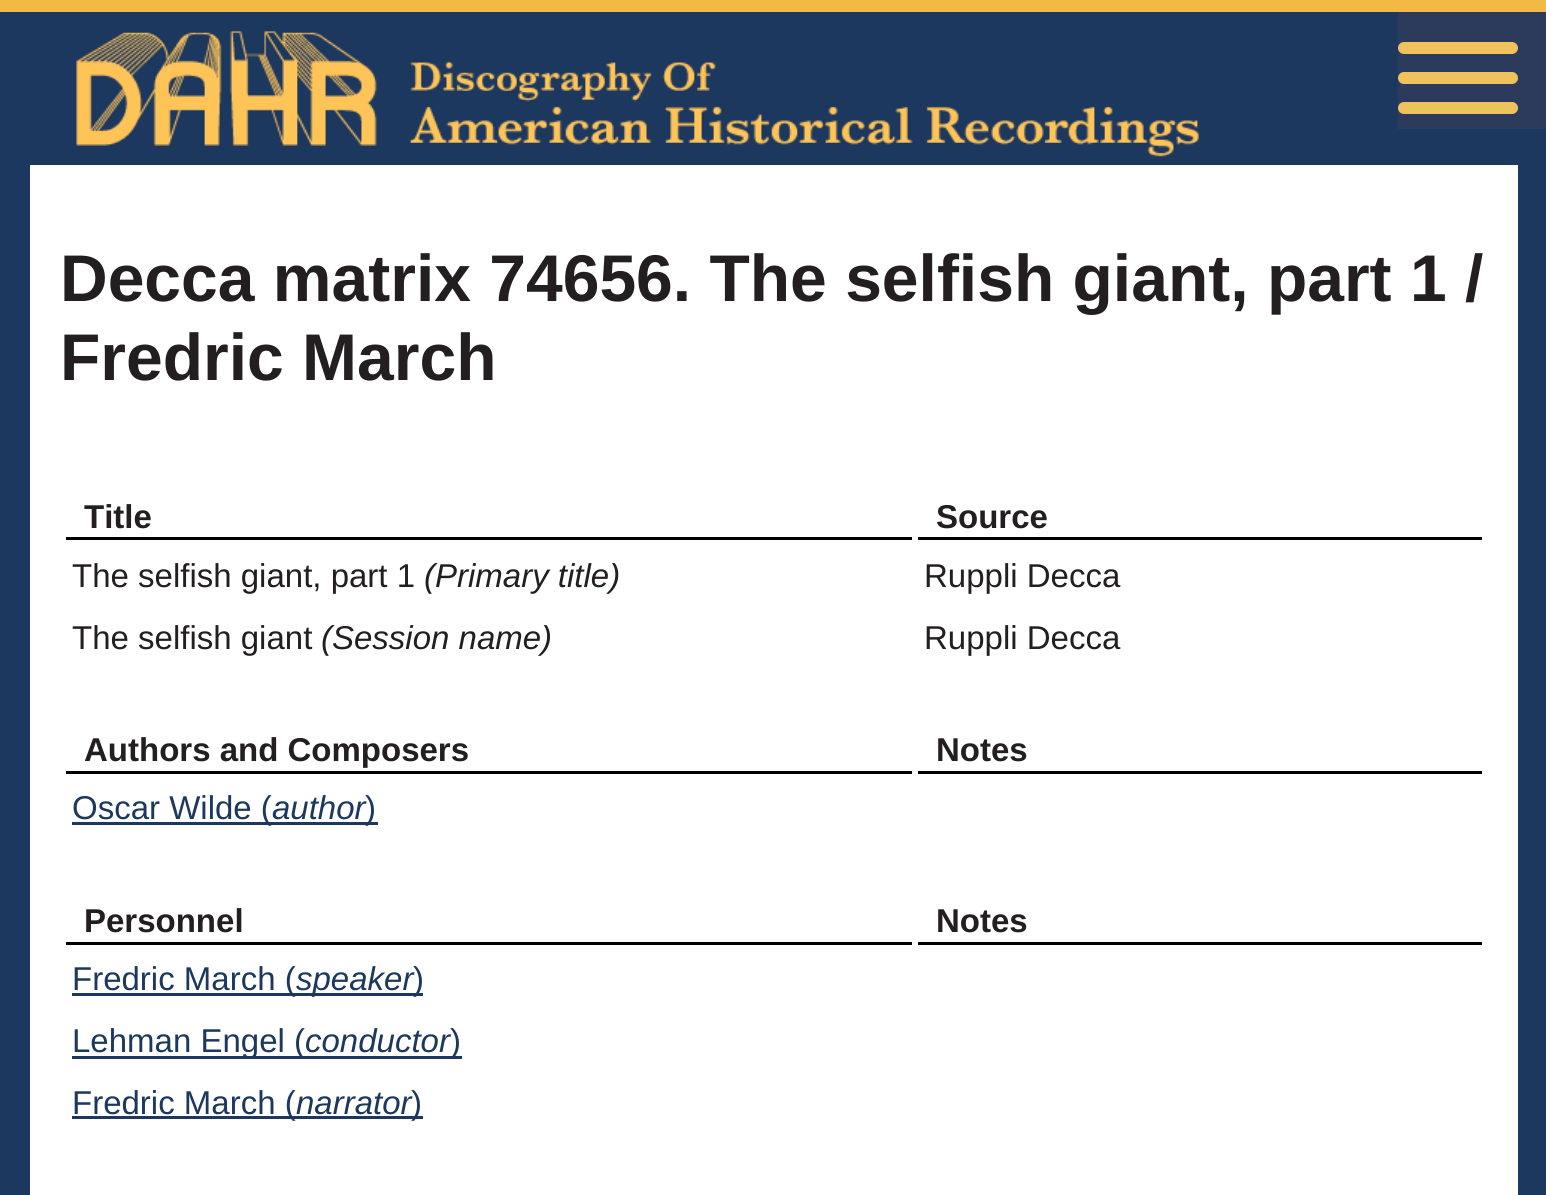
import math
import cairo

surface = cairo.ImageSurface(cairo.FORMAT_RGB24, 1546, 1195)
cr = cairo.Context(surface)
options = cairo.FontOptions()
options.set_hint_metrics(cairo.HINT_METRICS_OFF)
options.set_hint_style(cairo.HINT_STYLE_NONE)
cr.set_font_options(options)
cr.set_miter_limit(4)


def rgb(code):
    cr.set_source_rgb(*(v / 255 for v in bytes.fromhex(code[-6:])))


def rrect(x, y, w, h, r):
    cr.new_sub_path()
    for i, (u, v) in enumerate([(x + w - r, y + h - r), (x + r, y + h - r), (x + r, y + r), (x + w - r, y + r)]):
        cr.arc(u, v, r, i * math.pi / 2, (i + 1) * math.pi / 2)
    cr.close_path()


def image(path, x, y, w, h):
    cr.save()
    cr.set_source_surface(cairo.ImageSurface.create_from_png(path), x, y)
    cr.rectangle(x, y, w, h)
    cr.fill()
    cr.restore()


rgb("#1d385e")
cr.paint()
rgb("#f3b945")
cr.rectangle(0, 0, 1546, 12)
cr.fill()
image("img/1.png", 76, 31, 1123, 126)
rgb("#2c3b5c")
cr.rectangle(1398, 12, 148, 117)
cr.fill()
rgb("#eec35d")
rrect(1398, 72, 120, 12, 6)
cr.fill()
rrect(1398, 42, 120, 12, 6)
cr.fill()
rrect(1398, 102, 120, 12, 6)
cr.fill()
for x, y, w, h, color in [
    (30, 165, 1488, 1030, "#ffffff"),
    (66, 537, 846, 3, "#000000"),
    (918, 537, 564, 3, "#000000"),
    (66, 771, 846, 3, "#000000"),
    (918, 771, 564, 3, "#000000"),
    (72, 822, 306, 3, "#1d385e"),
    (66, 942, 846, 3, "#000000"),
    (918, 942, 564, 3, "#000000"),
    (72, 993, 342, 3, "#1d385e"),
    (414, 993, 9, 3, "#1d385e"),
    (72, 1056, 390, 3, "#1d385e"),
    (72, 1116, 351, 3, "#1d385e"),
]:
    rgb(color)
    cr.rectangle(x, y, w, h)
    cr.fill()
cr.select_font_face("Liberation Sans", cairo.FONT_SLANT_NORMAL, cairo.FONT_WEIGHT_BOLD)
cr.set_font_size(66)
rgb("#231f20")
cr.move_to(60, 301)
cr.show_text("Decca matrix 74656. The selfish giant, part 1 /")
cr.move_to(60, 380)
cr.show_text("Fredric March")
cr.set_font_size(33)
cr.move_to(84, 528)
cr.show_text("Title")
cr.move_to(936, 528)
cr.show_text("Source")
cr.select_font_face("Liberation Sans")
cr.move_to(72, 587)
cr.show_text("The selfish giant, part 1")
cr.select_font_face("Liberation Sans", cairo.FONT_SLANT_ITALIC)
cr.move_to(424, 587)
cr.show_text("(Primary title)")
cr.select_font_face("Liberation Sans")
cr.move_to(924, 587)
cr.show_text("Ruppli Decca")
cr.move_to(72, 649)
cr.show_text("The selfish giant")
cr.select_font_face("Liberation Sans", cairo.FONT_SLANT_ITALIC)
cr.move_to(321, 649)
cr.show_text("(Session name)")
cr.select_font_face("Liberation Sans")
cr.move_to(924, 649)
cr.show_text("Ruppli Decca")
cr.select_font_face("Liberation Sans", cairo.FONT_SLANT_NORMAL, cairo.FONT_WEIGHT_BOLD)
cr.move_to(84, 761)
cr.show_text("Authors and Composers")
cr.move_to(936, 761)
cr.show_text("Notes")
cr.select_font_face("Liberation Sans")
rgb("#1d385e")
cr.move_to(72, 819)
cr.show_text("Oscar Wilde (")
cr.select_font_face("Liberation Sans", cairo.FONT_SLANT_ITALIC)
cr.move_to(272, 819)
cr.show_text("author")
cr.select_font_face("Liberation Sans")
cr.move_to(365, 819)
cr.show_text(")")
cr.select_font_face("Liberation Sans", cairo.FONT_SLANT_NORMAL, cairo.FONT_WEIGHT_BOLD)
rgb("#231f20")
cr.move_to(84, 932)
cr.show_text("Personnel")
cr.move_to(936, 932)
cr.show_text("Notes")
cr.select_font_face("Liberation Sans")
rgb("#1d385e")
cr.move_to(72, 990)
cr.show_text("Fredric March (")
cr.select_font_face("Liberation Sans", cairo.FONT_SLANT_ITALIC)
cr.move_to(296, 990)
cr.show_text("speaker")
cr.select_font_face("Liberation Sans")
cr.move_to(413, 990)
cr.show_text(")")
cr.move_to(72, 1052)
cr.show_text("Lehman Engel (")
cr.select_font_face("Liberation Sans", cairo.FONT_SLANT_ITALIC)
cr.move_to(305, 1052)
cr.show_text("conductor")
cr.select_font_face("Liberation Sans")
cr.move_to(450, 1052)
cr.show_text(")")
cr.move_to(72, 1114)
cr.show_text("Fredric March (")
cr.select_font_face("Liberation Sans", cairo.FONT_SLANT_ITALIC)
cr.move_to(296, 1114)
cr.show_text("narrator")
cr.select_font_face("Liberation Sans")
cr.move_to(411, 1114)
cr.show_text(")")
surface.write_to_png("page.png")
